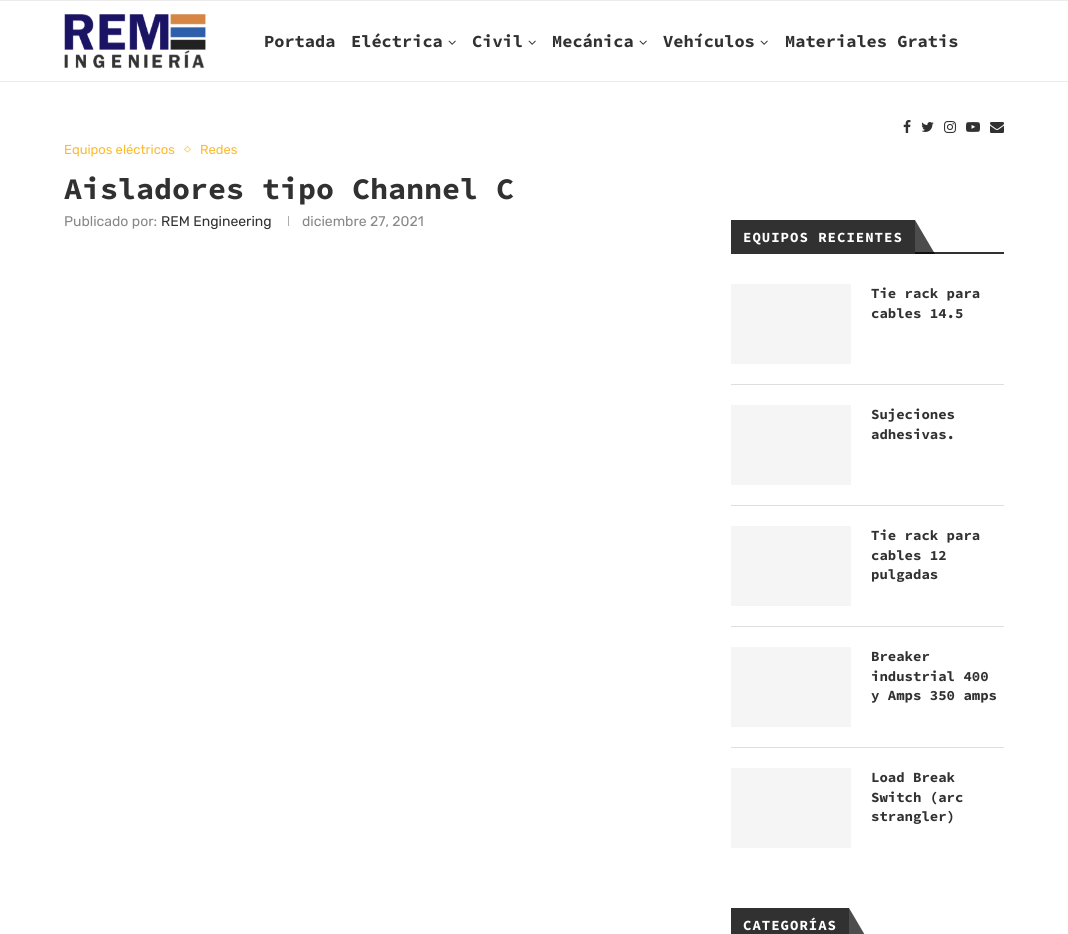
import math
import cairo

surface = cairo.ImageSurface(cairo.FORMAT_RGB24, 1068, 934)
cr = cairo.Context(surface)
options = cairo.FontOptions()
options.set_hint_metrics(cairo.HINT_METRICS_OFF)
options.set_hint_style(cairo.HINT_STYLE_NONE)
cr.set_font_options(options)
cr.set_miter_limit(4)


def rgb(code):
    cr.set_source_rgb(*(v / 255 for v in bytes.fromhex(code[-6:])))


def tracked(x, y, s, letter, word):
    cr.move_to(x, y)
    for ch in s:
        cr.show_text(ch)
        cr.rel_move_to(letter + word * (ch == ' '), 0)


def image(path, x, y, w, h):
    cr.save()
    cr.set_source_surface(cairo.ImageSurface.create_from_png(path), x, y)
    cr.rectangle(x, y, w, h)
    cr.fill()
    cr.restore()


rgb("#ffffff")
cr.paint()
rgb("#ececec")
cr.rectangle(0, 0, 1068, 1)
cr.fill()
cr.rectangle(0, 81, 1068, 1)
cr.fill()
image("img/1.png", 64, 14, 142, 55)
image("img/2.png", 448, 40, 8, 5)
image("img/2.png", 528, 40, 8, 5)
image("img/2.png", 639, 40, 8, 5)
image("img/2.png", 760, 40, 8, 5)
image("img/3.png", 903, 120, 8, 13)
image("img/4.png", 921, 122, 13, 10)
image("img/5.png", 944, 121, 12, 12)
image("img/6.png", 966, 122, 14, 10)
image("img/7.png", 990, 122, 14, 11)
cr.new_path()
cr.move_to(187.5, 146.5)
cr.line_to(190.5, 149.5)
cr.line_to(187.5, 152)
cr.line_to(184.5, 149.5)
cr.close_path()
rgb("#fed276")
cr.set_line_width(1)
cr.stroke()
for x, y, w, h, color in [
    (288, 216, 1, 10, "#acacac"),
    (915, 252, 89, 2, "#313131"),
    (731, 220, 184, 34, "#313131"),
]:
    rgb(color)
    cr.rectangle(x, y, w, h)
    cr.fill()
cr.set_source_rgba(0, 0, 0, 0.7)
cr.new_path()
cr.move_to(935, 254)
cr.line_to(915, 254)
cr.line_to(915, 220)
cr.close_path()
cr.fill()
for x, y, w, h, color in [
    (731, 384, 273, 1, "#dedede"),
    (731, 284, 120, 80, "#f5f5f5"),
    (731, 505, 273, 1, "#dedede"),
    (731, 405, 120, 80, "#f5f5f5"),
    (731, 626, 273, 1, "#dedede"),
    (731, 526, 120, 80, "#f5f5f5"),
    (731, 747, 273, 1, "#dedede"),
    (731, 647, 120, 80, "#f5f5f5"),
    (731, 768, 120, 80, "#f5f5f5"),
    (731, 908, 118, 26, "#313131"),
]:
    rgb(color)
    cr.rectangle(x, y, w, h)
    cr.fill()
rgb("#4d4d4d")
cr.new_path()
cr.move_to(869, 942)
cr.line_to(849, 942)
cr.line_to(849, 908)
cr.close_path()
cr.fill()
cr.select_font_face("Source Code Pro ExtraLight", cairo.FONT_SLANT_NORMAL, cairo.FONT_WEIGHT_BOLD)
cr.set_font_size(17)
rgb("#313131")
for x, y, s in [
    (264, 47, "Portada"),
    (351, 47, "Eléctrica"),
    (472, 47, "Civil"),
    (552, 47, "Mecánica"),
    (663, 47, "Vehículos"),
    (785, 47, "Materiales Gratis"),
]:
    cr.move_to(x, y)
    cr.show_text(s)
cr.select_font_face("Rubik")
cr.set_font_size(13)
rgb("#fdba2c")
cr.move_to(64, 154)
cr.show_text("Equipos eléctricos")
cr.move_to(200, 154)
cr.show_text("Redes")
cr.select_font_face("Source Code Pro ExtraLight", cairo.FONT_SLANT_NORMAL, cairo.FONT_WEIGHT_BOLD)
cr.set_font_size(30)
rgb("#313131")
cr.move_to(64, 199)
cr.show_text("Aisladores tipo Channel C")
cr.select_font_face("Rubik")
cr.set_font_size(14)
rgb("#888888")
cr.move_to(64, 226)
cr.show_text("Publicado por:")
rgb("#313131")
cr.move_to(161, 226)
cr.show_text("REM Engineering")
rgb("#888888")
cr.move_to(302, 226)
cr.show_text("diciembre 27, 2021")
cr.select_font_face("Source Code Pro ExtraLight", cairo.FONT_SLANT_NORMAL, cairo.FONT_WEIGHT_BOLD)
rgb("#ffffff")
tracked(743, 242, "EQUIPOS RECIENTES", 1, 0)
rgb("#313131")
for x, y, s in [
    (871, 298, "Tie rack para"),
    (871, 318, "cables 14.5"),
    (871, 419, "Sujeciones"),
    (871, 439, "adhesivas."),
    (871, 540, "Tie rack para"),
    (871, 560, "cables 12"),
    (871, 579, "pulgadas"),
    (871, 661, "Breaker"),
    (871, 681, "industrial 400"),
    (871, 700, "y Amps 350 amps"),
    (871, 782, "Load Break"),
    (871, 802, "Switch (arc"),
    (871, 821, "strangler)"),
]:
    cr.move_to(x, y)
    cr.show_text(s)
rgb("#ffffff")
tracked(743, 930, "CATEGORÍAS", 1, 0)
surface.write_to_png("page.png")
